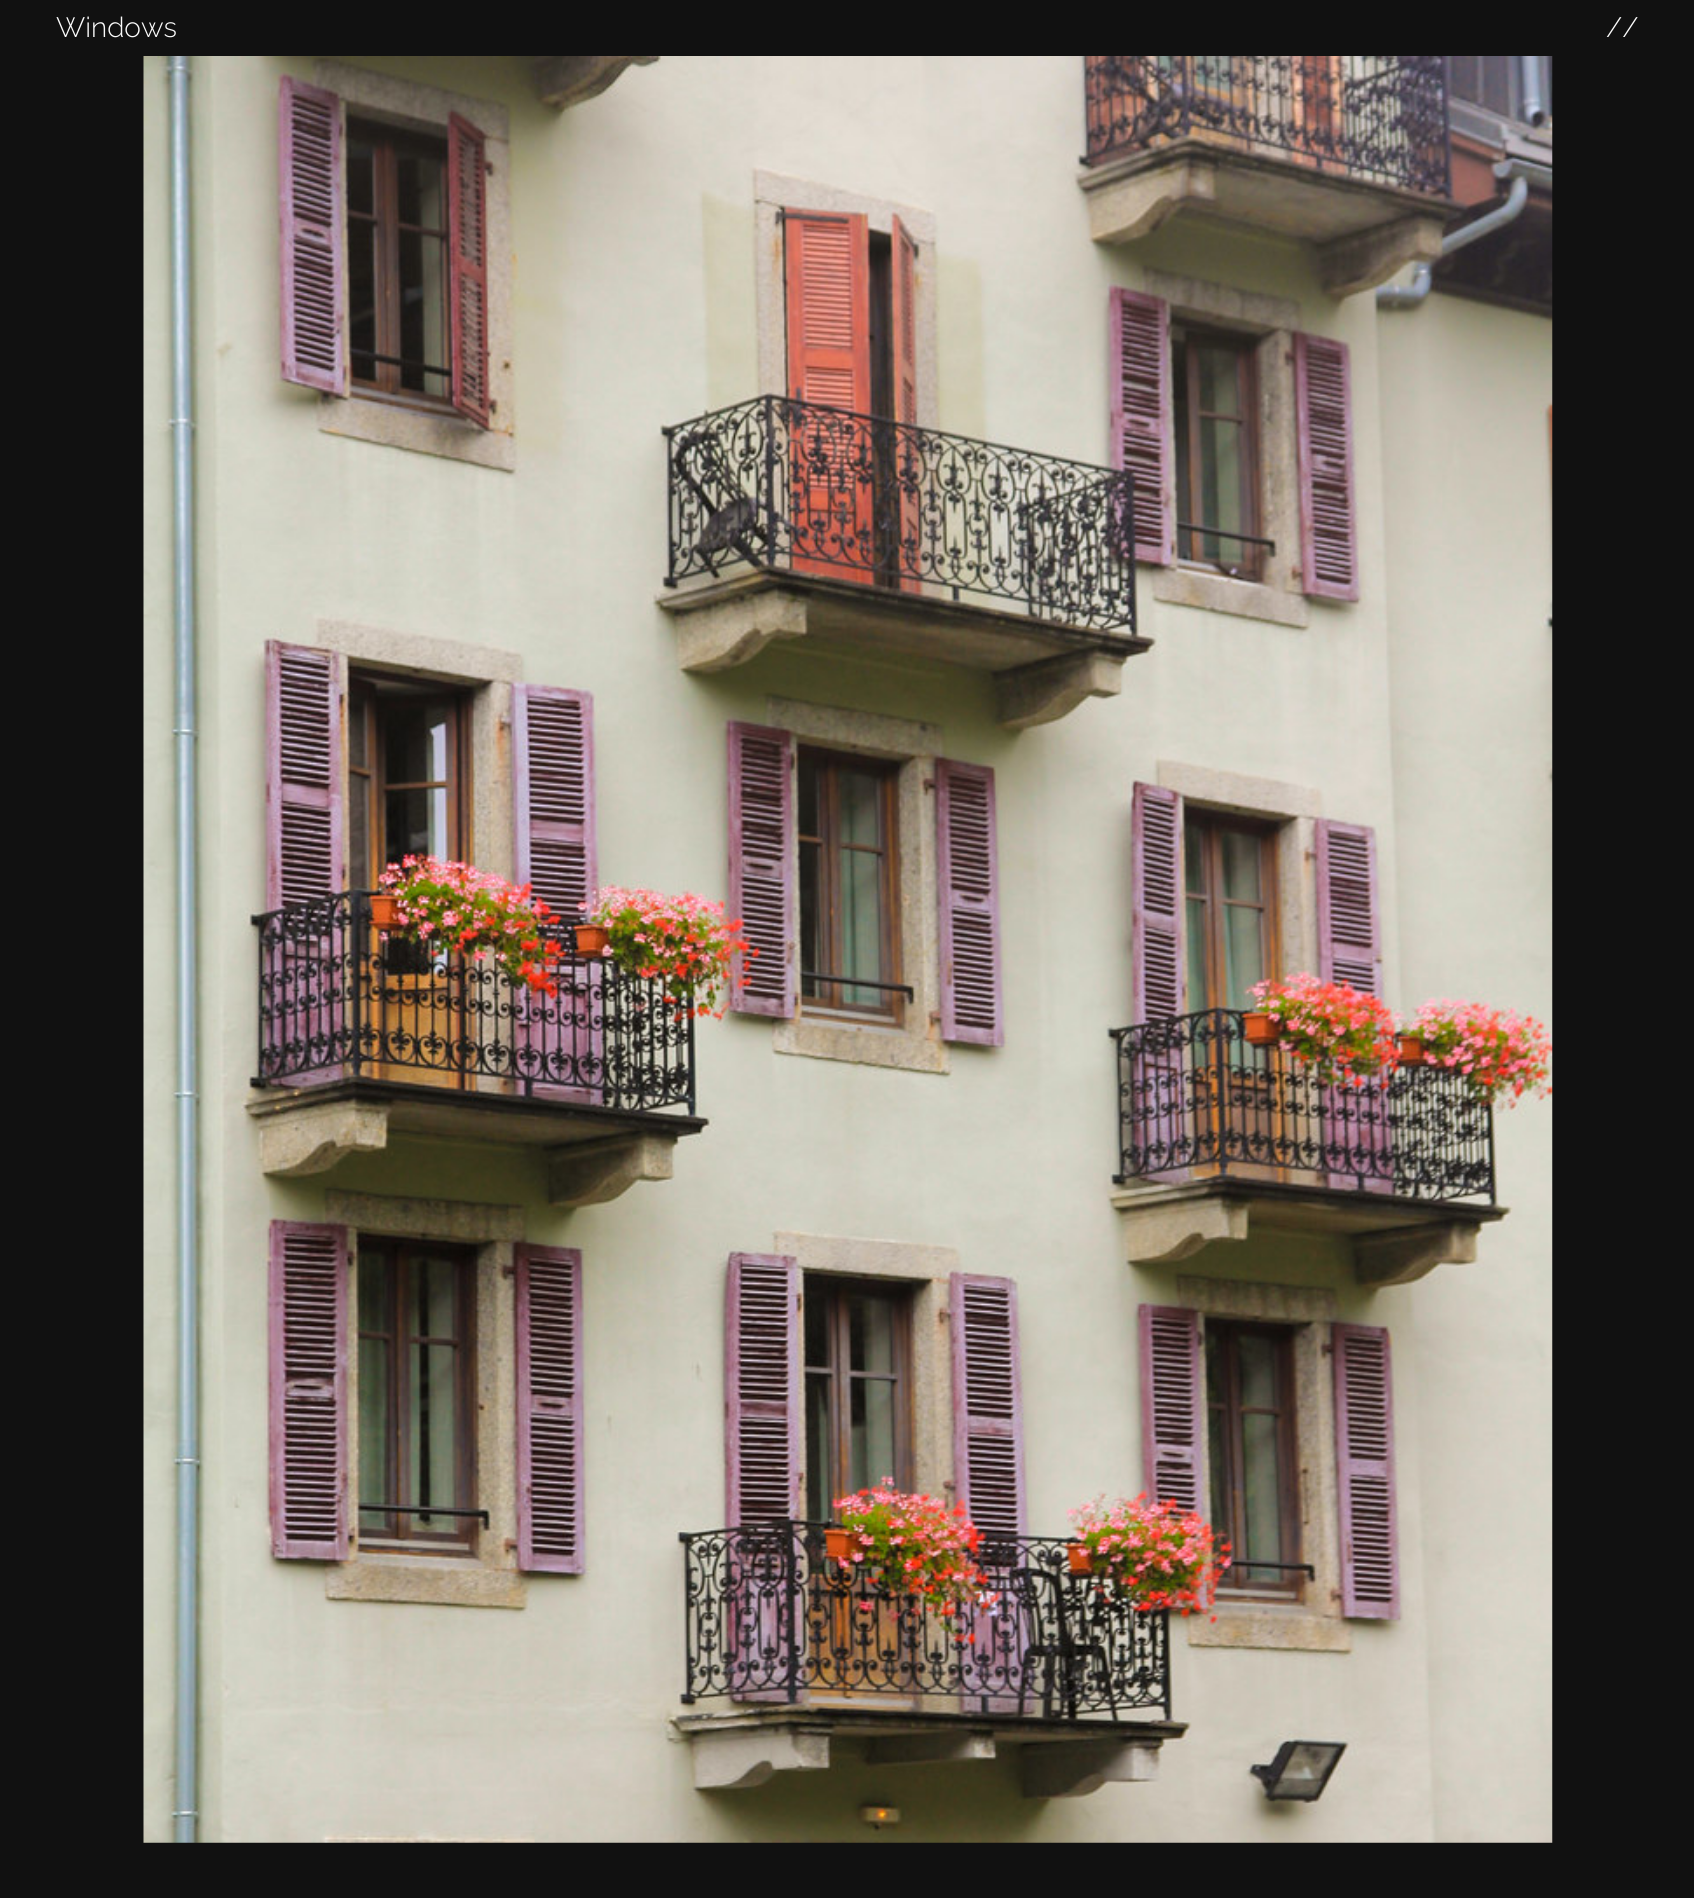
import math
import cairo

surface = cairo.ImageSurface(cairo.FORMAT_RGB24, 1694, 1898)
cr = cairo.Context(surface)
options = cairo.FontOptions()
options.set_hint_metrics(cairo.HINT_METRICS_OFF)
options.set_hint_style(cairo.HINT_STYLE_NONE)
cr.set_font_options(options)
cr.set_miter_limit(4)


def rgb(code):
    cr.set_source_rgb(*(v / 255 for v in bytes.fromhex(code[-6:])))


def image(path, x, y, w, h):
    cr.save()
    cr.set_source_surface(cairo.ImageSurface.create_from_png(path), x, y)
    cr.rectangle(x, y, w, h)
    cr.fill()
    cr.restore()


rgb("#111111")
cr.paint()
image("img/1.png", 143, 56, 1410, 1787)
cr.select_font_face("Raleway Light")
cr.set_font_size(28)
rgb("#fbfbfb")
cr.move_to(56, 37)
cr.show_text("Windows")
cr.move_to(1606, 37)
cr.show_text("//")
surface.write_to_png("page.png")
